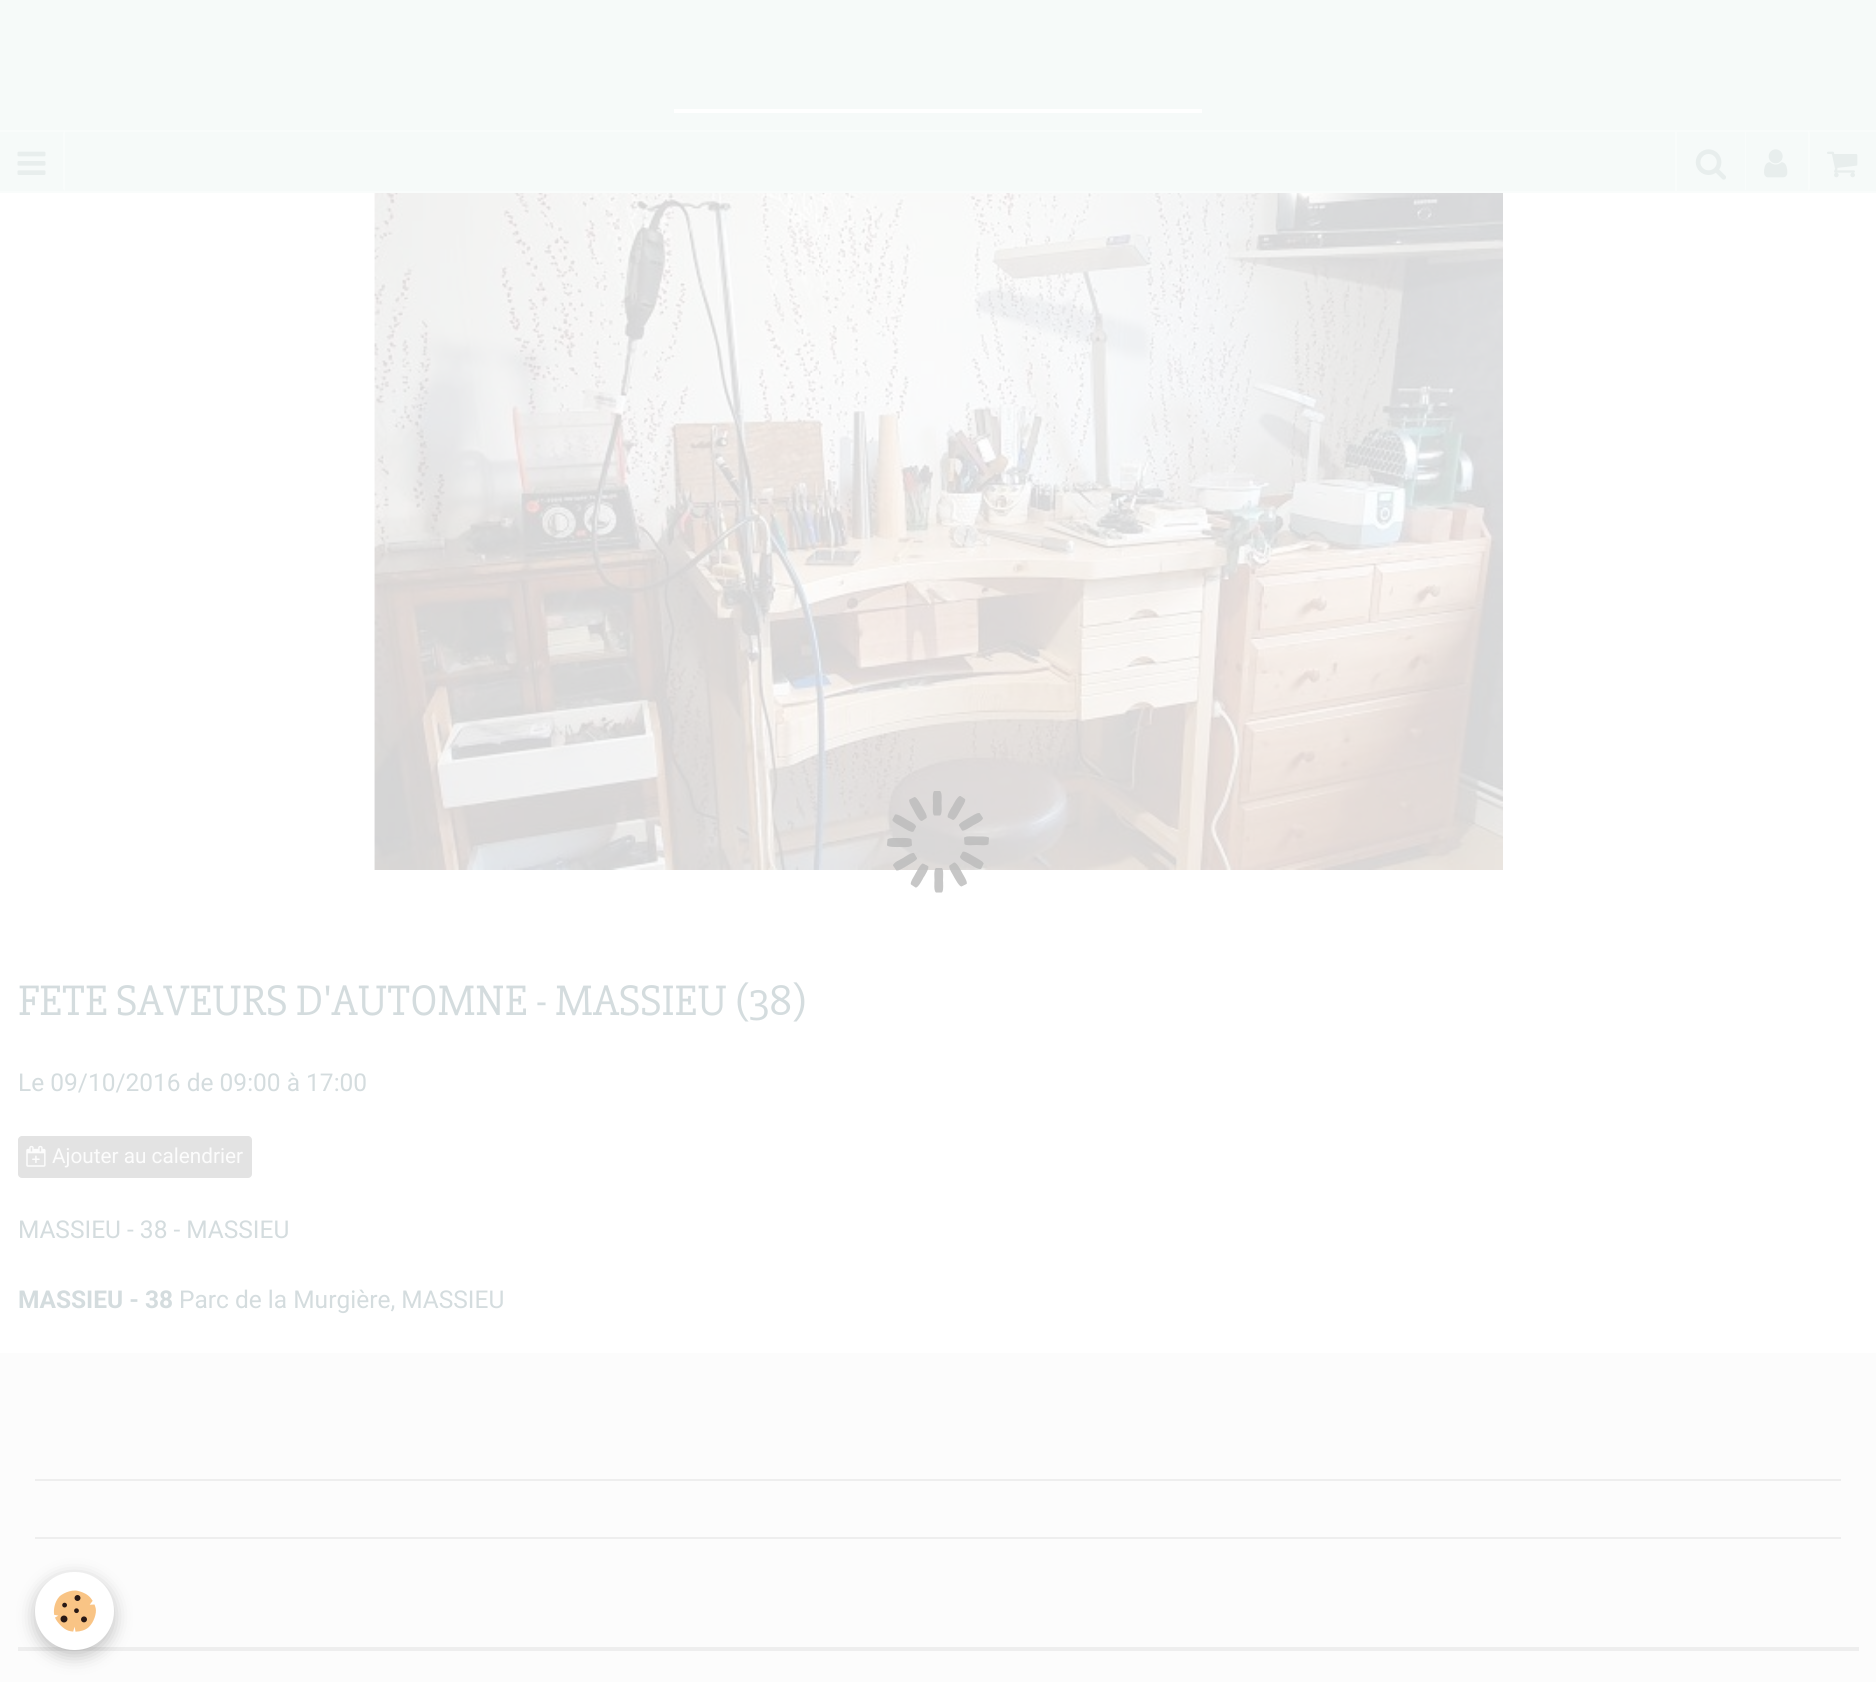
import math
import cairo

surface = cairo.ImageSurface(cairo.FORMAT_RGB24, 1876, 1682)
cr = cairo.Context(surface)
options = cairo.FontOptions()
options.set_hint_metrics(cairo.HINT_METRICS_OFF)
options.set_hint_style(cairo.HINT_STYLE_NONE)
cr.set_font_options(options)
cr.set_miter_limit(4)


def rgb(code):
    cr.set_source_rgb(*(v / 255 for v in bytes.fromhex(code[-6:])))


def rrect(x, y, w, h, r):
    cr.new_sub_path()
    for i, (u, v) in enumerate([(x + w - r, y + h - r), (x + r, y + h - r), (x + r, y + r), (x + w - r, y + r)]):
        cr.arc(u, v, r, i * math.pi / 2, (i + 1) * math.pi / 2)
    cr.close_path()


def soft_shadow(x, y, w, h, r, blur, alpha):
    cr.push_group_with_content(cairo.CONTENT_ALPHA)
    cr.set_operator(cairo.OPERATOR_SOURCE)
    for i in range(15, -16, -2):
        e = blur * i / 6
        if min(w, h) + 2 * e > 0:
            cr.set_source_rgba(0, 0, 0, alpha * math.erfc((i - 1) / 8.5) / 2)
            rrect(x - e, y - e, w + 2 * e, h + 2 * e, max(0, min(r + e + blur * .6, min(w, h) / 2 + e)))
            cr.fill()
    cr.mask(cr.pop_group())


def image(path, x, y, w, h):
    cr.save()
    cr.set_source_surface(cairo.ImageSurface.create_from_png(path), x, y)
    cr.rectangle(x, y, w, h)
    cr.fill()
    cr.restore()


rgb("#ffffff")
cr.paint()
for x, y, w, h, color in [
    (0, 0, 1876, 191, "#f6faf9"),
    (1675, 131, 2, 60, "#f9fcfb"),
    (674, 109, 528, 4, "#ffffff"),
    (0, 130, 1876, 2, "#f9fcfb"),
    (0, 191, 1876, 2, "#f9fcfb"),
]:
    rgb(color)
    cr.rectangle(x, y, w, h)
    cr.fill()
cr.set_source_rgba(1, 0.996, 0.996, 0.35)
cr.new_path()
cr.move_to(65, 131)
cr.line_to(65, 191)
cr.line_to(63, 189)
cr.line_to(63, 133)
cr.close_path()
cr.fill()
image("img/1.png", 17, 151, 29, 24)
image("img/2.png", 1695, 149, 31, 31)
rgb("#f9fcfb")
cr.new_path()
cr.move_to(1745, 191)
cr.line_to(1745, 131)
cr.line_to(1746, 133)
cr.line_to(1746, 189)
cr.close_path()
cr.fill()
image("img/3.png", 1764, 149, 24, 29)
cr.set_source_rgba(1, 0.996, 0.996, 0.35)
cr.new_path()
cr.move_to(1808, 191)
cr.line_to(1808, 131)
cr.line_to(1810, 133)
cr.line_to(1810, 189)
cr.close_path()
cr.fill()
image("img/4.png", 1827, 151, 31, 27)
image("img/5.png", 374, 193, 1129, 677)
rgb("#c2c1c1")
cr.new_path()
cr.move_to(934.5, 791)
cr.line_to(940, 791)
cr.curve_to(942.5, 792.5, 941.5, 801.5, 941.5, 803)
cr.curve_to(941.5, 805, 942.5, 814, 940, 815.5)
cr.line_to(934.5, 815.5)
cr.curve_to(932, 815.5, 933, 804.5, 933, 803)
cr.curve_to(933, 802.5, 932, 791, 934.5, 791)
cr.close_path()
cr.move_to(960.5, 796)
cr.line_to(965, 799)
cr.curve_to(966.5, 801, 961, 808.5, 960.5, 810)
cr.curve_to(959.5, 811.5, 955.5, 820, 953, 820)
cr.line_to(948, 817.5)
cr.curve_to(946, 816, 952, 806.5, 952.5, 806)
cr.curve_to(953, 805, 958, 795, 960.5, 796)
cr.close_path()
cr.fill()
cr.set_source_rgba(0.737, 0.737, 0.737, 0.83)
cr.new_path()
cr.move_to(980, 813.5)
cr.line_to(983, 818)
cr.curve_to(983, 821, 974.5, 824.5, 973, 825.5)
cr.curve_to(971.5, 826.5, 964, 831.5, 962, 830.5)
cr.line_to(959, 825.5)
cr.curve_to(958, 823.5, 968, 818.5, 968.5, 818)
cr.curve_to(969.5, 817.5, 979, 811, 980, 813.5)
cr.close_path()
cr.move_to(989, 838)
cr.line_to(988.5, 844)
cr.curve_to(987.5, 846, 978.5, 845, 976.5, 845)
cr.curve_to(974.5, 845, 965.5, 846, 964.5, 844)
cr.line_to(964, 838)
cr.curve_to(964.5, 835.5, 975.5, 836.5, 976.5, 836.5)
cr.curve_to(977.5, 836.5, 989, 836, 989, 838)
cr.close_path()
cr.move_to(983.5, 864)
cr.line_to(981, 869)
cr.curve_to(978.5, 870, 971, 865, 969.5, 864)
cr.curve_to(968, 863, 959.5, 859.5, 960, 856.5)
cr.line_to(962.5, 852)
cr.curve_to(964, 850, 973, 856, 974, 856.5)
cr.curve_to(974.5, 857, 985, 862, 983.5, 864)
cr.close_path()
cr.fill()
cr.new_path()
cr.move_to(966.5, 884)
cr.line_to(961.5, 886.5)
cr.curve_to(959, 886.5, 955, 878.5, 954, 877)
cr.curve_to(953.5, 875.5, 948, 868, 949.5, 865.5)
cr.line_to(954, 862.5)
cr.curve_to(956.5, 861.5, 961.5, 871.5, 962, 872.5)
cr.curve_to(962, 873, 968.5, 882.5, 966.5, 884)
cr.close_path()
cr.move_to(941.5, 892.5)
cr.line_to(936, 892.5)
cr.curve_to(933.5, 891, 934.5, 882, 934.5, 880)
cr.curve_to(934.5, 878.5, 933.5, 869.5, 936, 868)
cr.line_to(941.5, 868)
cr.curve_to(944, 868, 943, 879, 943, 880)
cr.curve_to(943, 881, 944, 892.5, 941.5, 892.5)
cr.close_path()
cr.move_to(915.5, 887.5)
cr.line_to(911, 884.5)
cr.curve_to(909.5, 882.5, 915, 875, 915.5, 873.5)
cr.curve_to(916.5, 872, 920.5, 863.5, 923, 863.5)
cr.line_to(928, 866)
cr.curve_to(930, 867.5, 924, 877, 923.5, 877.5)
cr.curve_to(923, 878.5, 918, 888.5, 915.5, 887.5)
cr.close_path()
cr.fill()
cr.new_path()
cr.move_to(896, 870)
cr.line_to(893, 865.5)
cr.curve_to(893, 862.5, 901.5, 859, 903, 858)
cr.curve_to(904.5, 857, 912, 852, 914, 853)
cr.line_to(917, 858)
cr.curve_to(918, 860, 908, 865, 907.5, 865.5)
cr.curve_to(906.5, 866, 897, 872.5, 896, 870)
cr.close_path()
cr.move_to(887, 845)
cr.line_to(887.5, 839.5)
cr.curve_to(888.5, 837.5, 897.5, 838, 899.5, 838)
cr.curve_to(901.5, 838, 910.5, 837.5, 911.5, 839.5)
cr.line_to(912, 845)
cr.curve_to(911.5, 848, 900.5, 847, 899.5, 847)
cr.curve_to(898.5, 847, 887, 847.5, 887, 845)
cr.close_path()
cr.move_to(892.5, 819.5)
cr.line_to(895, 814.5)
cr.curve_to(897.5, 813.5, 905, 818.5, 906.5, 819.5)
cr.curve_to(908, 820.5, 916.5, 824, 916, 827)
cr.line_to(913.5, 831.5)
cr.curve_to(912, 833.5, 903, 827.5, 902, 827)
cr.curve_to(901.5, 826.5, 891, 821.5, 892.5, 819.5)
cr.close_path()
cr.fill()
rgb("#c2c1c1")
cr.new_path()
cr.move_to(909.5, 799.5)
cr.line_to(914.5, 797)
cr.curve_to(917, 797, 921, 805, 922, 806.5)
cr.curve_to(922.5, 808, 928, 815.5, 926.5, 818)
cr.line_to(922, 821)
cr.curve_to(919.5, 822, 914.5, 812, 914, 811)
cr.curve_to(914, 810.5, 907.5, 801, 909.5, 799.5)
cr.close_path()
cr.fill()
rgb("#e3e3e3")
rrect(18, 1136, 234, 42, 4)
cr.fill()
image("img/6.png", 26, 1145, 20, 22)
for x, y, w, h, color in [
    (0, 1353, 1876, 329, "#fcfcfc"),
    (35, 1479, 1806, 2, "#eeeeee"),
    (35, 1537, 1806, 2, "#eeeeee"),
    (18, 1647, 1841, 4, "#eeeeee"),
]:
    rgb(color)
    cr.rectangle(x, y, w, h)
    cr.fill()
rgb("#000000")
soft_shadow(35, 1577, 79, 79, 39.5, 9, 0.24)
rgb("#ffffff")
rrect(35, 1572, 79, 78, 39)
cr.fill()
image("img/7.png", 53, 1590, 43, 42)
cr.select_font_face("Slabo 27px")
cr.set_font_size(44.1)
rgb("#d4dcde")
cr.move_to(18, 1015)
cr.show_text("FETE SAVEURS D'AUTOMNE - MASSIEU (38)")
cr.select_font_face("Roboto")
cr.set_font_size(24.5)
cr.move_to(18, 1091)
cr.show_text("Le 09/10/2016 de 09:00 à 17:00")
cr.set_font_size(20.75)
rgb("#fcfcfc")
cr.move_to(52, 1163)
cr.show_text("Ajouter au calendrier")
cr.set_font_size(24.5)
rgb("#d4dcde")
cr.move_to(18, 1238)
cr.show_text("MASSIEU - 38 - MASSIEU")
cr.select_font_face("Roboto", cairo.FONT_SLANT_NORMAL, cairo.FONT_WEIGHT_BOLD)
cr.move_to(18, 1308)
cr.show_text("MASSIEU - 38")
cr.select_font_face("Roboto")
cr.move_to(179, 1308)
cr.show_text("Parc de la Murgière, MASSIEU")
surface.write_to_png("page.png")
